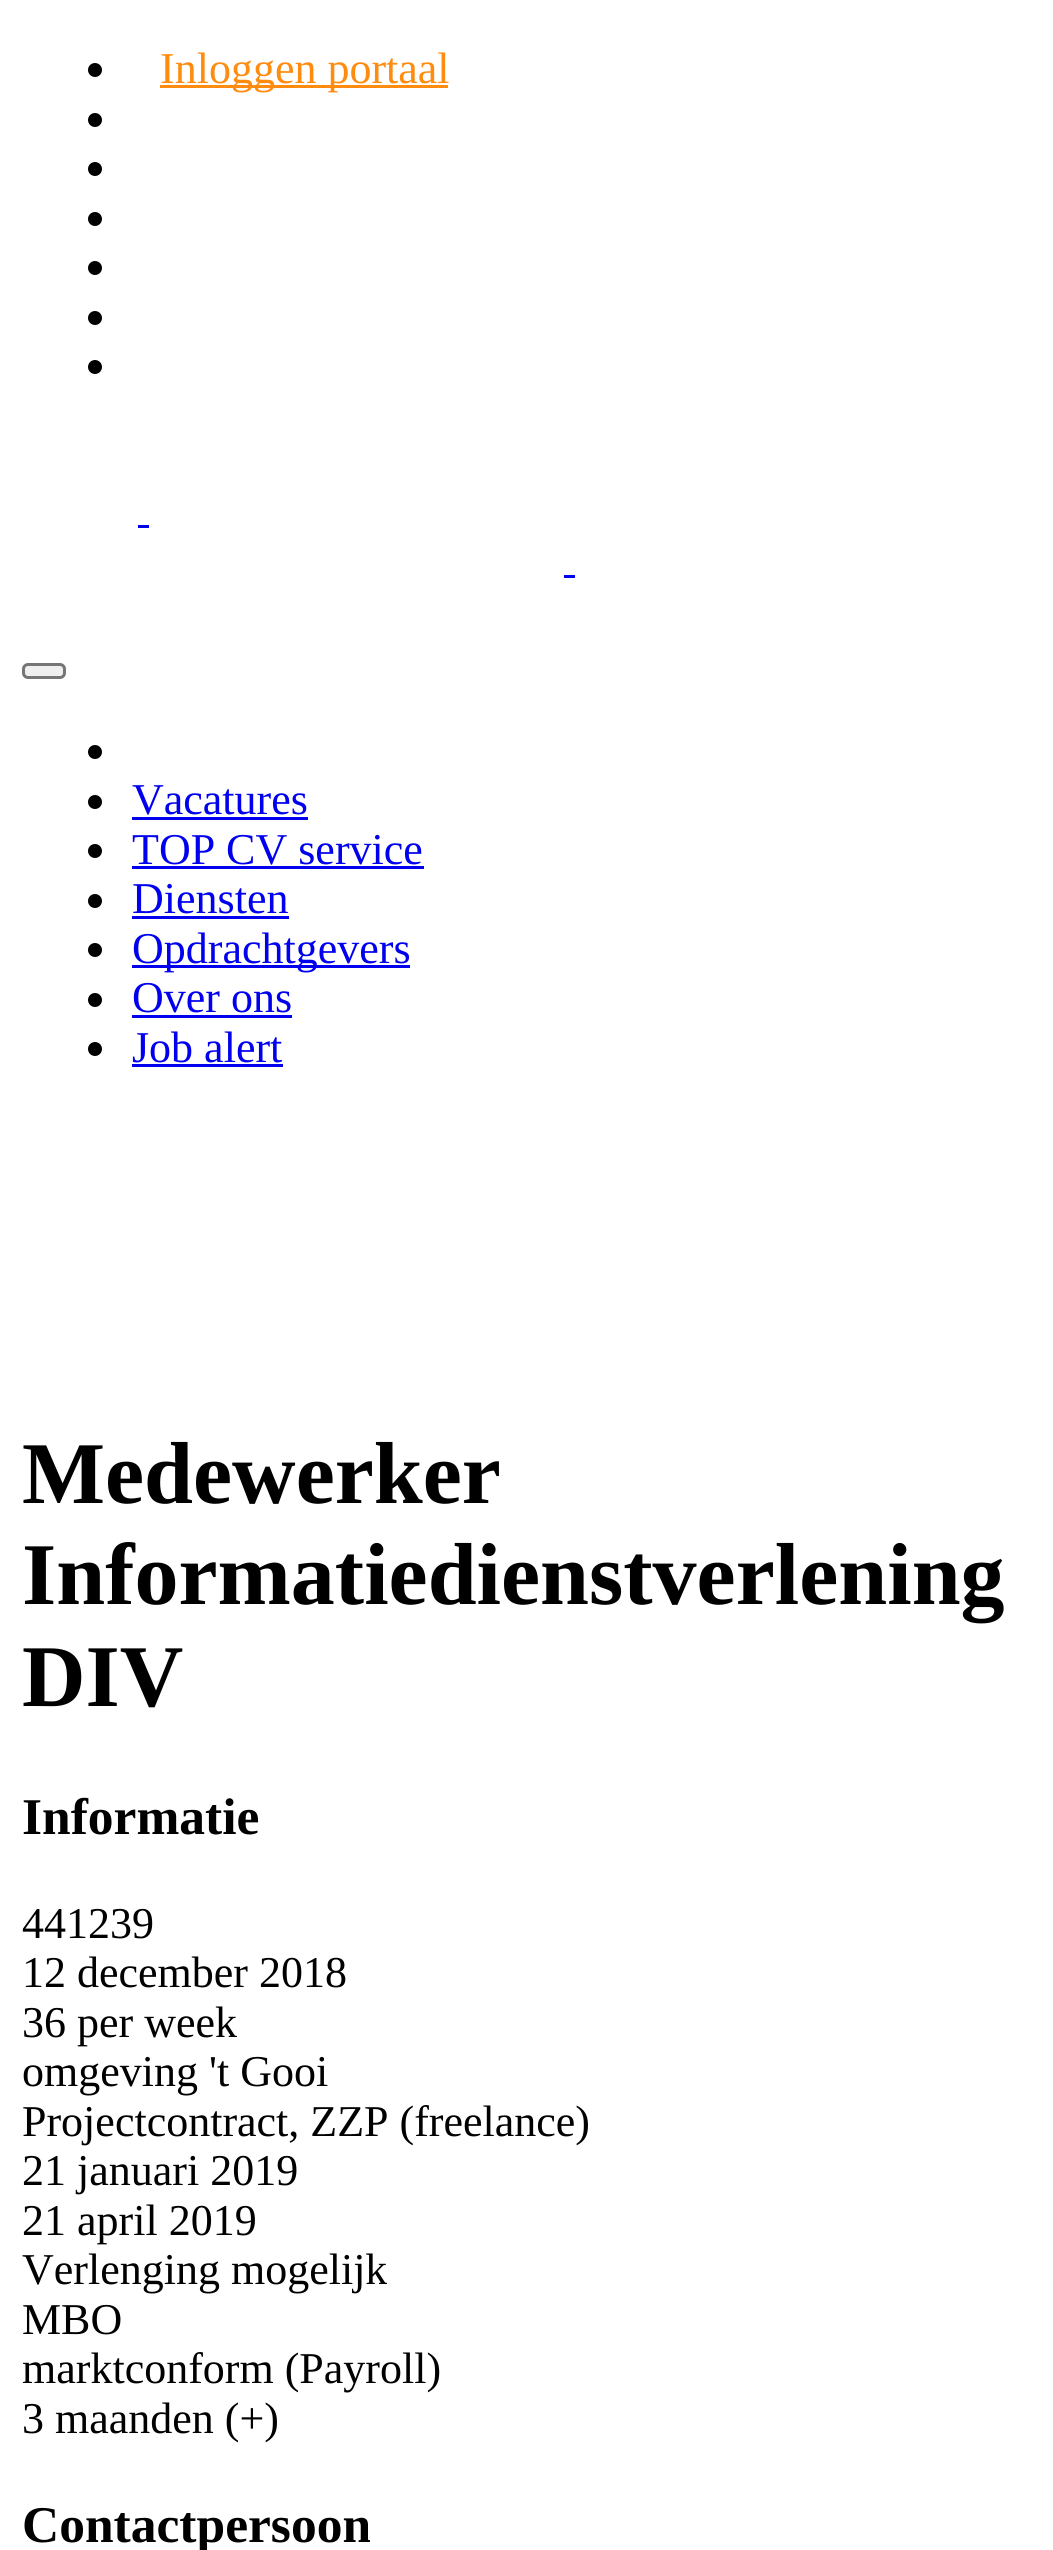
import math
import cairo

surface = cairo.ImageSurface(cairo.FORMAT_RGB24, 1053, 2550)
cr = cairo.Context(surface)
options = cairo.FontOptions()
options.set_hint_metrics(cairo.HINT_METRICS_OFF)
options.set_hint_style(cairo.HINT_STYLE_NONE)
cr.set_font_options(options)
cr.set_miter_limit(4)


def rgb(code):
    cr.set_source_rgb(*(v / 255 for v in bytes.fromhex(code[-6:])))


def rrect(x, y, w, h, r):
    cr.new_sub_path()
    for i, (u, v) in enumerate([(x + w - r, y + h - r), (x + r, y + h - r), (x + r, y + r), (x + w - r, y + r)]):
        cr.arc(u, v, r, i * math.pi / 2, (i + 1) * math.pi / 2)
    cr.close_path()


rgb("#ffffff")
cr.paint()
rgb("#000000")
cr.arc(95, 70, 7, 0, 2 * math.pi)
cr.fill()
rgb("#ff8b0f")
cr.rectangle(160, 85, 288, 3)
cr.fill()
rgb("#000000")
cr.arc(95, 120, 7, 0, 2 * math.pi)
cr.fill()
cr.arc(95, 169, 7, 0, 2 * math.pi)
cr.fill()
cr.arc(95, 219, 7, 0, 2 * math.pi)
cr.fill()
cr.arc(95, 268, 7, 0, 2 * math.pi)
cr.fill()
cr.arc(95, 318, 7, 0, 2 * math.pi)
cr.fill()
cr.arc(95, 367, 7, 0, 2 * math.pi)
cr.fill()
rgb("#0000ee")
cr.rectangle(138, 525, 11, 3)
cr.fill()
cr.rectangle(564, 575, 11, 3)
cr.fill()
rgb("#efefef")
rrect(23.5, 664.5, 41, 13, 4.5)
cr.fill_preserve()
rgb("#767676")
cr.set_line_width(3)
cr.stroke()
rgb("#000000")
cr.arc(95, 752, 7, 0, 2 * math.pi)
cr.fill()
cr.arc(95, 802, 7, 0, 2 * math.pi)
cr.fill()
rgb("#0000ee")
cr.rectangle(132, 817, 176, 3)
cr.fill()
rgb("#000000")
cr.arc(95, 851, 7, 0, 2 * math.pi)
cr.fill()
rgb("#0000ee")
cr.rectangle(132, 866, 292, 3)
cr.fill()
rgb("#000000")
cr.arc(95, 901, 7, 0, 2 * math.pi)
cr.fill()
rgb("#0000ee")
cr.rectangle(132, 916, 157, 3)
cr.fill()
rgb("#000000")
cr.arc(95, 950, 7, 0, 2 * math.pi)
cr.fill()
rgb("#0000ee")
cr.rectangle(132, 965, 278, 3)
cr.fill()
rgb("#000000")
cr.arc(95, 1000, 7, 0, 2 * math.pi)
cr.fill()
rgb("#0000ee")
cr.rectangle(132, 1015, 160, 3)
cr.fill()
rgb("#000000")
cr.arc(95, 1049, 7, 0, 2 * math.pi)
cr.fill()
rgb("#0000ee")
cr.rectangle(132, 1064, 151, 3)
cr.fill()
cr.select_font_face("Liberation Serif")
cr.set_font_size(44)
rgb("#ff8b0f")
cr.move_to(160, 83)
cr.show_text("Inloggen portaal")
rgb("#0000ee")
for x, y, s in [
    (132, 814, "Vacatures"),
    (132, 864, "TOP CV service"),
    (132, 913, "Diensten"),
    (132, 963, "Opdrachtgevers"),
    (132, 1012, "Over ons"),
    (132, 1062, "Job alert"),
]:
    cr.move_to(x, y)
    cr.show_text(s)
cr.select_font_face("Liberation Serif", cairo.FONT_SLANT_NORMAL, cairo.FONT_WEIGHT_BOLD)
cr.set_font_size(88)
rgb("#000000")
for x, y, s in [
    (22, 1503, "Medewerker"),
    (22, 1604, "Informatiedienstverlening"),
    (22, 1706, "DIV"),
]:
    cr.move_to(x, y)
    cr.show_text(s)
cr.set_font_size(51.5)
cr.move_to(22, 1834)
cr.show_text("Informatie")
cr.select_font_face("Liberation Serif")
cr.set_font_size(44)
for x, y, s in [
    (22, 1938, "441239"),
    (22, 1987, "12 december 2018"),
    (22, 2037, "36 per week"),
    (22, 2086, "omgeving 't Gooi"),
    (22, 2136, "Projectcontract, ZZP (freelance)"),
    (22, 2185, "21 januari 2019"),
    (22, 2235, "21 april 2019"),
    (22, 2284, "Verlenging mogelijk"),
    (22, 2334, "MBO"),
    (22, 2383, "marktconform (Payroll)"),
    (22, 2433, "3 maanden (+)"),
]:
    cr.move_to(x, y)
    cr.show_text(s)
cr.select_font_face("Liberation Serif", cairo.FONT_SLANT_NORMAL, cairo.FONT_WEIGHT_BOLD)
cr.set_font_size(51.5)
cr.move_to(22, 2542)
cr.show_text("Contactpersoon")
surface.write_to_png("page.png")
